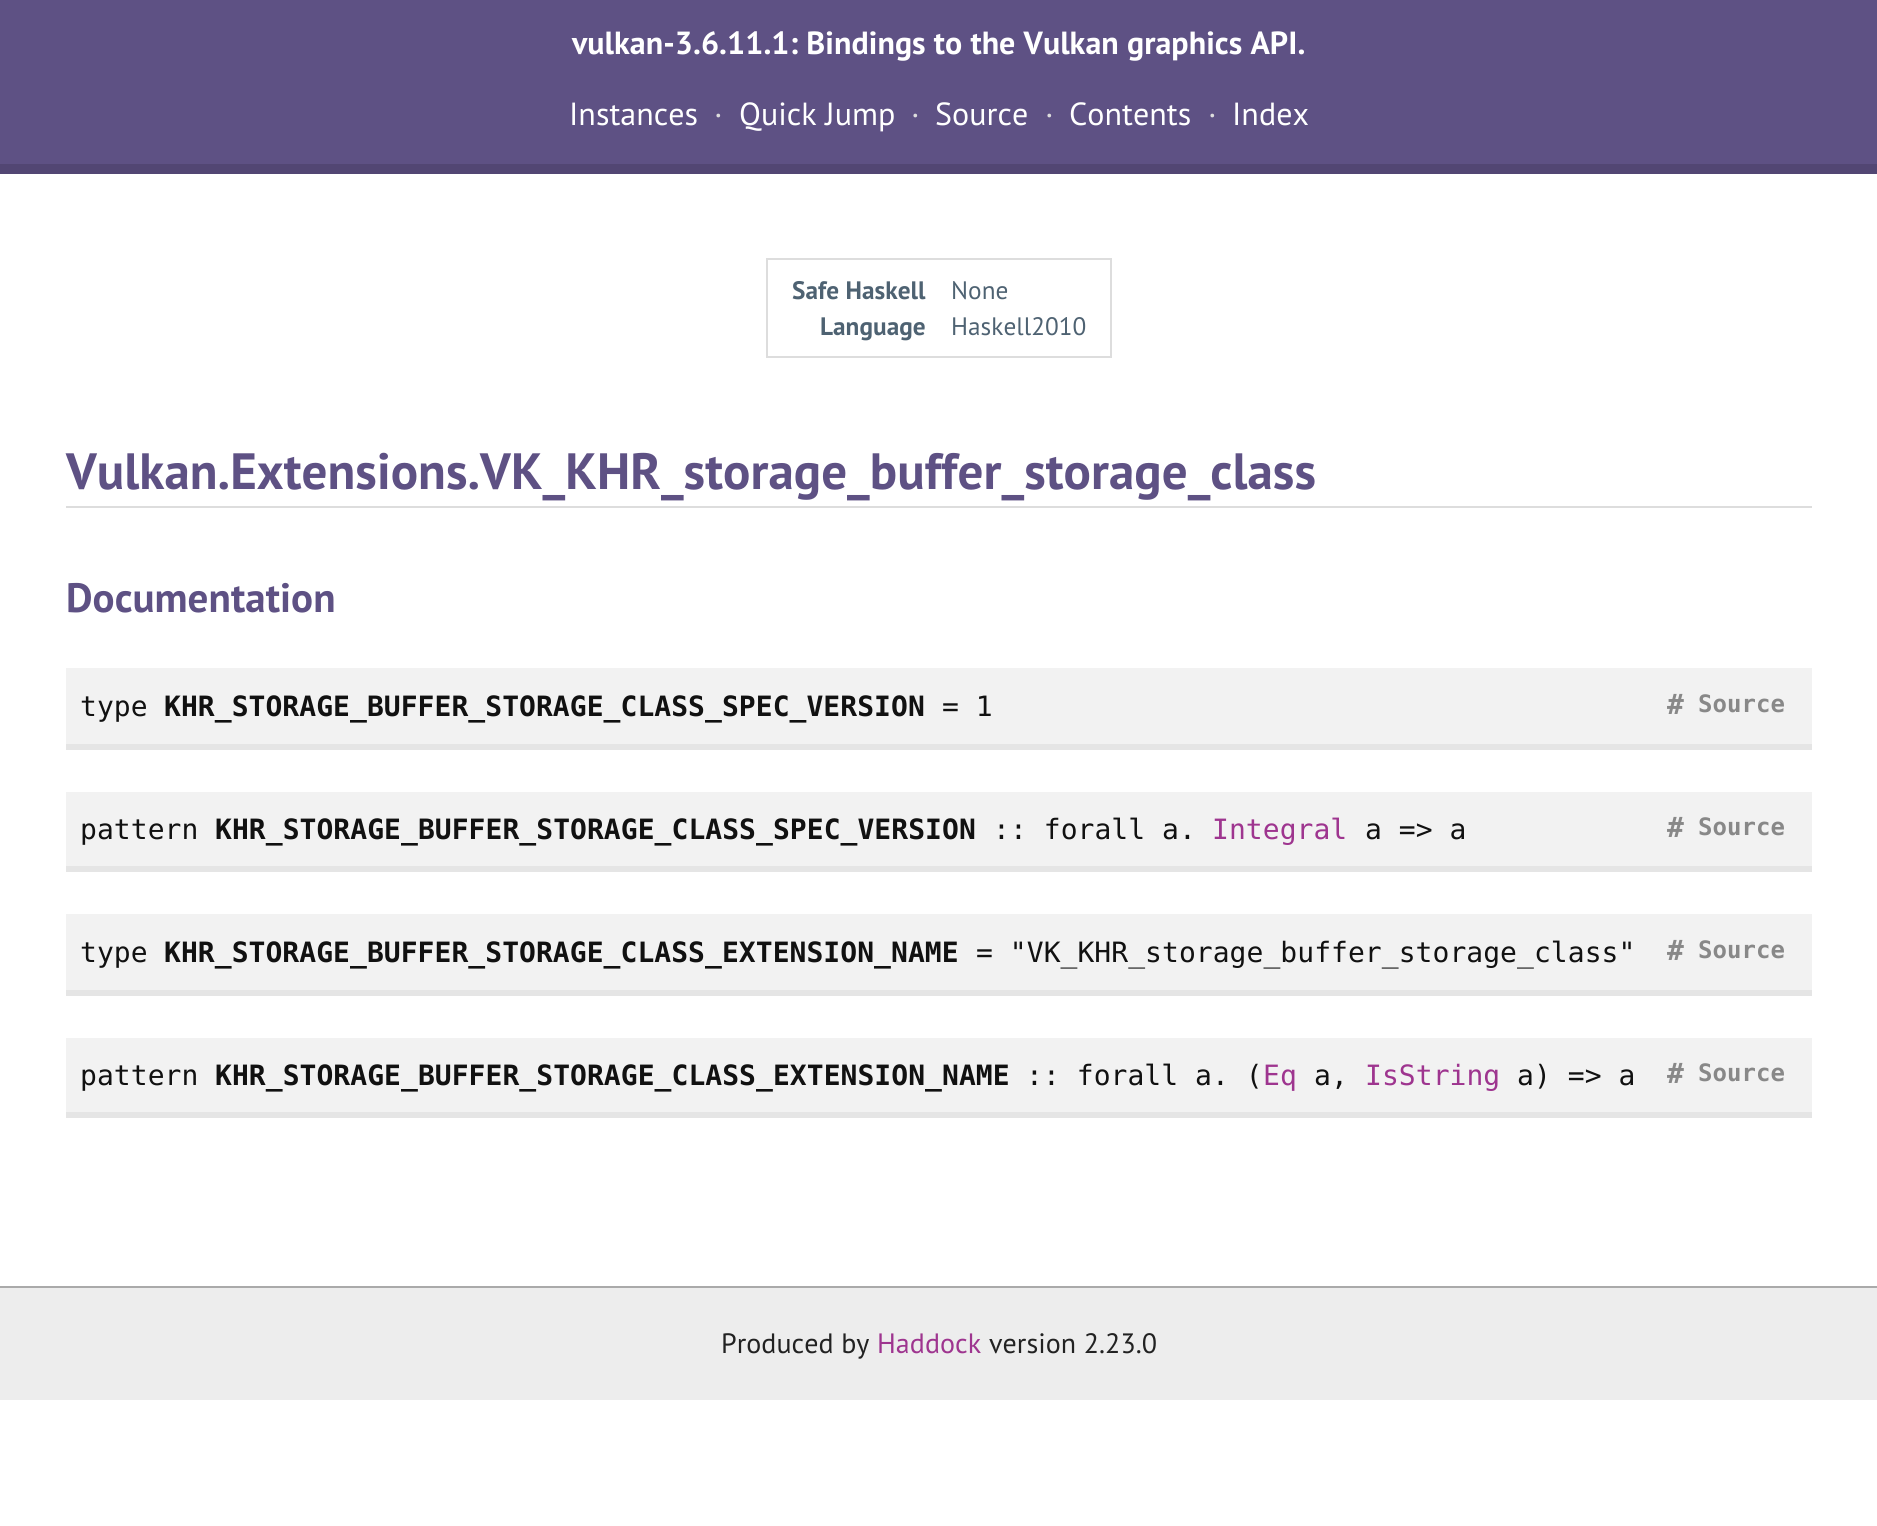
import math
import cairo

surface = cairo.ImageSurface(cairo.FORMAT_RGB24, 1877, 1526)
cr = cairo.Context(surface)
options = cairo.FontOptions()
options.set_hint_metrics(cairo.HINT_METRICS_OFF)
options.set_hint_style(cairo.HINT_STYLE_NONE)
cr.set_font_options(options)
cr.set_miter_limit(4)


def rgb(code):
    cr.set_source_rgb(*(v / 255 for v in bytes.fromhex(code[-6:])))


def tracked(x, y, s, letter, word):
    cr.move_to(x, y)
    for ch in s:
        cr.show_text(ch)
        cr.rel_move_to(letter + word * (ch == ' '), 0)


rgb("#ffffff")
cr.paint()
rgb("#5e5184")
cr.rectangle(0, 0, 1877, 164)
cr.fill()
rgb("#524673")
cr.rectangle(0, 164, 1877, 10)
cr.fill()
cr.rectangle(767, 259, 344, 98)
rgb("#dddddd")
cr.stroke()
for x, y, w, h, color in [
    (66, 506, 1746, 2, "#dddddd"),
    (66, 668, 1746, 76, "#f2f2f2"),
    (66, 744, 1746, 6, "#e5e5e5"),
    (66, 792, 1746, 74, "#f2f2f2"),
    (66, 866, 1746, 6, "#e5e5e5"),
    (66, 914, 1746, 76, "#f2f2f2"),
    (66, 990, 1746, 6, "#e5e5e5"),
    (66, 1038, 1746, 74, "#f2f2f2"),
    (66, 1112, 1746, 6, "#e5e5e5"),
    (0, 1288, 1877, 112, "#ededed"),
    (0, 1286, 1877, 2, "#aaaaaa"),
]:
    rgb(color)
    cr.rectangle(x, y, w, h)
    cr.fill()
cr.select_font_face("PT Sans", cairo.FONT_SLANT_NORMAL, cairo.FONT_WEIGHT_BOLD)
cr.set_font_size(32)
rgb("#ffffff")
tracked(572, 54, "vulkan-3.6.11.1: Bindings to the Vulkan graphics API.", 0.05, 0)
cr.select_font_face("PT Sans")
tracked(569, 125, "Instances", 0.05, 0)
rgb("#dddddd")
tracked(714, 125, "·", 0.05, 0)
rgb("#ffffff")
tracked(739, 125, "Quick Jump", 0.05, 0)
rgb("#dddddd")
tracked(911, 125, "·", 0.05, 0)
rgb("#ffffff")
tracked(935, 125, "Source", 0.05, 0)
rgb("#dddddd")
tracked(1045, 125, "·", 0.05, 0)
rgb("#ffffff")
tracked(1069, 125, "Contents", 0.05, 0)
rgb("#dddddd")
tracked(1208, 125, "·", 0.05, 0)
rgb("#ffffff")
tracked(1232, 125, "Index", 0.05, 0)
cr.select_font_face("PT Sans", cairo.FONT_SLANT_NORMAL, cairo.FONT_WEIGHT_BOLD)
cr.set_font_size(25.25)
rgb("#4e6272")
tracked(792, 299, "Safe Haskell", 0.05, 0)
cr.select_font_face("PT Sans")
tracked(951, 299, "None", 0.05, 0)
cr.select_font_face("PT Sans", cairo.FONT_SLANT_NORMAL, cairo.FONT_WEIGHT_BOLD)
tracked(820, 335, "Language", 0.05, 0)
cr.select_font_face("PT Sans")
tracked(951, 335, "Haskell2010", 0.05, 0)
cr.select_font_face("PT Sans", cairo.FONT_SLANT_NORMAL, cairo.FONT_WEIGHT_BOLD)
cr.set_font_size(51)
rgb("#5e5184")
tracked(66, 489, "Vulkan.Extensions.VK_KHR_storage_buffer_storage_class", 0.05, 0)
cr.set_font_size(41)
tracked(66, 612, "Documentation", 0.05, 0)
cr.select_font_face("DejaVu Sans Mono")
cr.set_font_size(28)
rgb("#111111")
tracked(80, 716, "type", 0.05, 0)
cr.select_font_face("DejaVu Sans Mono", cairo.FONT_SLANT_NORMAL, cairo.FONT_WEIGHT_BOLD)
tracked(164, 716, "KHR_STORAGE_BUFFER_STORAGE_CLASS_SPEC_VERSION", 0.05, 0)
cr.select_font_face("DejaVu Sans Mono")
tracked(942, 716, "= 1", 0.05, 0)
cr.select_font_face("DejaVu Sans Mono", cairo.FONT_SLANT_NORMAL, cairo.FONT_WEIGHT_BOLD)
rgb("#888888")
tracked(1667, 714, "#", 0.05, 0)
cr.set_font_size(24)
tracked(1698, 712, "Source", 0.05, 0)
cr.select_font_face("DejaVu Sans Mono")
cr.set_font_size(28)
rgb("#111111")
tracked(80, 839, "pattern", 0.05, 0)
cr.select_font_face("DejaVu Sans Mono", cairo.FONT_SLANT_NORMAL, cairo.FONT_WEIGHT_BOLD)
tracked(215, 839, "KHR_STORAGE_BUFFER_STORAGE_CLASS_SPEC_VERSION", 0.05, 0)
cr.select_font_face("DejaVu Sans Mono")
tracked(993, 839, ":: forall a.", 0.05, 0)
rgb("#9e358f")
tracked(1212, 839, "Integral", 0.05, 0)
rgb("#111111")
tracked(1365, 839, "a => a", 0.05, 0)
cr.select_font_face("DejaVu Sans Mono", cairo.FONT_SLANT_NORMAL, cairo.FONT_WEIGHT_BOLD)
rgb("#888888")
tracked(1667, 837, "#", 0.05, 0)
cr.set_font_size(24)
tracked(1698, 835, "Source", 0.05, 0)
cr.select_font_face("DejaVu Sans Mono")
cr.set_font_size(28)
rgb("#111111")
tracked(80, 962, "type", 0.05, 0)
cr.select_font_face("DejaVu Sans Mono", cairo.FONT_SLANT_NORMAL, cairo.FONT_WEIGHT_BOLD)
tracked(164, 962, "KHR_STORAGE_BUFFER_STORAGE_CLASS_EXTENSION_NAME", 0.05, 0)
cr.select_font_face("DejaVu Sans Mono")
tracked(976, 962, "= \"VK_KHR_storage_buffer_storage_class\"", 0.05, 0)
cr.select_font_face("DejaVu Sans Mono", cairo.FONT_SLANT_NORMAL, cairo.FONT_WEIGHT_BOLD)
rgb("#888888")
tracked(1667, 960, "#", 0.05, 0)
cr.set_font_size(24)
tracked(1698, 958, "Source", 0.05, 0)
cr.select_font_face("DejaVu Sans Mono")
cr.set_font_size(28)
rgb("#111111")
tracked(80, 1085, "pattern", 0.05, 0)
cr.select_font_face("DejaVu Sans Mono", cairo.FONT_SLANT_NORMAL, cairo.FONT_WEIGHT_BOLD)
tracked(215, 1085, "KHR_STORAGE_BUFFER_STORAGE_CLASS_EXTENSION_NAME", 0.05, 0)
cr.select_font_face("DejaVu Sans Mono")
tracked(1026, 1085, ":: forall a. (", 0.05, 0)
rgb("#9e358f")
tracked(1263, 1085, "Eq", 0.05, 0)
rgb("#111111")
tracked(1314, 1085, "a,", 0.05, 0)
rgb("#9e358f")
tracked(1365, 1085, "IsString", 0.05, 0)
rgb("#111111")
tracked(1517, 1085, "a) => a", 0.05, 0)
cr.select_font_face("DejaVu Sans Mono", cairo.FONT_SLANT_NORMAL, cairo.FONT_WEIGHT_BOLD)
rgb("#888888")
tracked(1667, 1083, "#", 0.05, 0)
cr.set_font_size(24)
tracked(1698, 1081, "Source", 0.05, 0)
cr.select_font_face("PT Sans")
cr.set_font_size(28)
rgb("#222222")
tracked(721, 1353, "Produced by", 0.05, 0)
rgb("#9e358f")
tracked(877, 1353, "Haddock", 0.05, 0)
rgb("#222222")
tracked(989, 1353, "version 2.23.0", 0.05, 0)
surface.write_to_png("page.png")
